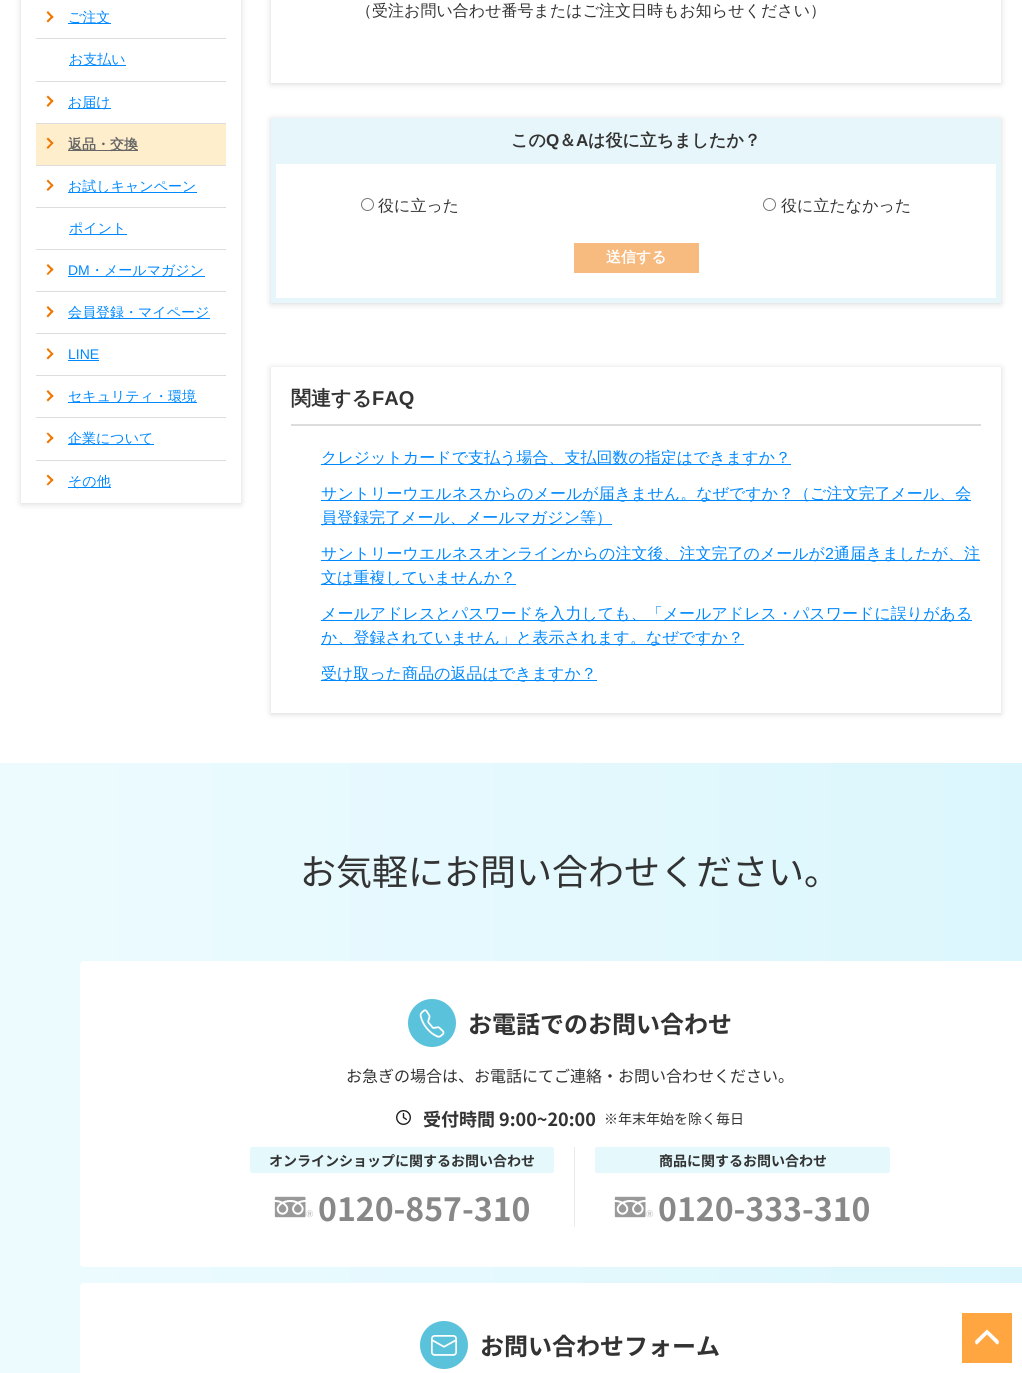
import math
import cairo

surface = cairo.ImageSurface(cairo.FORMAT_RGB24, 1022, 1373)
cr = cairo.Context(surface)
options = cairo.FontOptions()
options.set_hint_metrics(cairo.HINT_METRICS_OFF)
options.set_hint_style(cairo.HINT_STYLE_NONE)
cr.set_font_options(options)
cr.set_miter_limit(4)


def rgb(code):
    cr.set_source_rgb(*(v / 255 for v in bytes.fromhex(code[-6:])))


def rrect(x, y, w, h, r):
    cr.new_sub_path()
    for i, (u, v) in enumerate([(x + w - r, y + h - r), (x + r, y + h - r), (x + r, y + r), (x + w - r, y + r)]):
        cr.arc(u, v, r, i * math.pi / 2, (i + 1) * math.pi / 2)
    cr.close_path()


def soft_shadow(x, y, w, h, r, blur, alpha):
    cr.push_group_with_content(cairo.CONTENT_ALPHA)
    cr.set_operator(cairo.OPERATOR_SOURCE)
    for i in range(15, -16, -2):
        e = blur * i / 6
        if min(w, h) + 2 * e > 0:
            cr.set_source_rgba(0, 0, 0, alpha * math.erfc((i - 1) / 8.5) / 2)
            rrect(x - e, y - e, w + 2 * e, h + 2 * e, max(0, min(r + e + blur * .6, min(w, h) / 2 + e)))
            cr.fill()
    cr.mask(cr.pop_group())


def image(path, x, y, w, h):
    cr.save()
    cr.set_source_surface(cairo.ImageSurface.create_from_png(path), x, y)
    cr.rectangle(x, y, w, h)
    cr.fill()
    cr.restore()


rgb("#ffffff")
cr.paint()
cr.save()
cr.set_fill_rule(cairo.FILL_RULE_EVEN_ODD)
cr.new_path()
cr.move_to(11, 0)
cr.line_to(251, 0)
cr.line_to(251, 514)
cr.line_to(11, 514)
cr.close_path()
cr.move_to(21, -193)
cr.line_to(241, -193)
cr.line_to(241, 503)
cr.line_to(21, 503)
cr.close_path()
cr.clip()
rgb("#d8d8d8")
soft_shadow(21, -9, 220, 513, 0, 3, 1)
cr.restore()
rgb("#ef7700")
cr.new_path()
cr.move_to(48, 11)
cr.line_to(53.5, 17)
cr.line_to(52, 18.5)
cr.line_to(46.5, 12.5)
cr.close_path()
cr.fill()
cr.new_path()
cr.move_to(52, 15.5)
cr.line_to(53.5, 17)
cr.line_to(48, 22.5)
cr.line_to(46.5, 21)
cr.close_path()
cr.fill()
for x, y, w, h, color in [
    (68, 23, 43, 1, "#0088ff"),
    (36, 38, 190, 1, "#dddddd"),
    (69, 65, 57, 1, "#0088ff"),
    (36, 81, 190, 1, "#dddddd"),
]:
    rgb(color)
    cr.rectangle(x, y, w, h)
    cr.fill()
rgb("#ef7700")
cr.new_path()
cr.move_to(48, 95.5)
cr.line_to(53.5, 101)
cr.line_to(52, 102.5)
cr.line_to(46.5, 97)
cr.close_path()
cr.fill()
cr.new_path()
cr.move_to(52, 99.5)
cr.line_to(53.5, 101)
cr.line_to(48, 107)
cr.line_to(46.5, 105.5)
cr.close_path()
cr.fill()
for x, y, w, h, color in [
    (68, 108, 43, 1, "#0088ff"),
    (36, 123, 190, 1, "#dddddd"),
    (36, 124, 190, 41, "#ffeecc"),
]:
    rgb(color)
    cr.rectangle(x, y, w, h)
    cr.fill()
rgb("#ef7700")
cr.new_path()
cr.move_to(48, 137.5)
cr.line_to(53.5, 143)
cr.line_to(52, 144.5)
cr.line_to(46.5, 139)
cr.close_path()
cr.fill()
cr.new_path()
cr.move_to(52, 142)
cr.line_to(53.5, 143)
cr.line_to(48, 149)
cr.line_to(46.5, 147.5)
cr.close_path()
cr.fill()
rgb("#666666")
cr.rectangle(68, 150, 70, 1)
cr.fill()
rgb("#dddddd")
cr.rectangle(36, 165, 190, 1)
cr.fill()
rgb("#ef7700")
cr.new_path()
cr.move_to(48, 179.5)
cr.line_to(53.5, 185.5)
cr.line_to(52, 186.5)
cr.line_to(46.5, 181)
cr.close_path()
cr.fill()
cr.new_path()
cr.move_to(52, 184)
cr.line_to(53.5, 185.5)
cr.line_to(48, 191)
cr.line_to(46.5, 189.5)
cr.close_path()
cr.fill()
for x, y, w, h, color in [
    (68, 192, 129, 1, "#0088ff"),
    (36, 207, 190, 1, "#dddddd"),
    (69, 234, 58, 1, "#0088ff"),
    (36, 249, 190, 1, "#dddddd"),
]:
    rgb(color)
    cr.rectangle(x, y, w, h)
    cr.fill()
rgb("#ef7700")
cr.new_path()
cr.move_to(48, 264)
cr.line_to(53.5, 269.5)
cr.line_to(52, 271)
cr.line_to(46.5, 265.5)
cr.close_path()
cr.fill()
cr.new_path()
cr.move_to(52, 268)
cr.line_to(53.5, 269.5)
cr.line_to(48, 275)
cr.line_to(46.5, 274)
cr.close_path()
cr.fill()
rgb("#0088ff")
cr.rectangle(68, 276, 137, 1)
cr.fill()
rgb("#dddddd")
cr.rectangle(36, 291, 190, 1)
cr.fill()
rgb("#ef7700")
cr.new_path()
cr.move_to(48, 306)
cr.line_to(53.5, 311.5)
cr.line_to(52, 313)
cr.line_to(46.5, 307.5)
cr.close_path()
cr.fill()
cr.new_path()
cr.move_to(52, 310)
cr.line_to(53.5, 311.5)
cr.line_to(48, 317.5)
cr.line_to(46.5, 316)
cr.close_path()
cr.fill()
rgb("#0088ff")
cr.rectangle(68, 318, 142, 1)
cr.fill()
rgb("#dddddd")
cr.rectangle(36, 333, 190, 1)
cr.fill()
rgb("#ef7700")
cr.new_path()
cr.move_to(48, 348)
cr.line_to(53.5, 354)
cr.line_to(52, 355)
cr.line_to(46.5, 349.5)
cr.close_path()
cr.fill()
cr.new_path()
cr.move_to(52, 352.5)
cr.line_to(53.5, 354)
cr.line_to(48, 359.5)
cr.line_to(46.5, 358)
cr.close_path()
cr.fill()
rgb("#0088ff")
cr.rectangle(68, 360, 31, 1)
cr.fill()
rgb("#dddddd")
cr.rectangle(36, 375, 190, 1)
cr.fill()
rgb("#ef7700")
cr.new_path()
cr.move_to(48, 390)
cr.line_to(53.5, 396)
cr.line_to(52, 397.5)
cr.line_to(46.5, 391.5)
cr.close_path()
cr.fill()
cr.new_path()
cr.move_to(52, 394.5)
cr.line_to(53.5, 396)
cr.line_to(48, 401.5)
cr.line_to(46.5, 400)
cr.close_path()
cr.fill()
rgb("#0088ff")
cr.rectangle(68, 402, 129, 1)
cr.fill()
rgb("#dddddd")
cr.rectangle(36, 417, 190, 1)
cr.fill()
rgb("#ef7700")
cr.new_path()
cr.move_to(48, 432.5)
cr.line_to(53.5, 438)
cr.line_to(52, 439.5)
cr.line_to(46.5, 433.5)
cr.close_path()
cr.fill()
cr.new_path()
cr.move_to(52, 436.5)
cr.line_to(53.5, 438)
cr.line_to(48, 443.5)
cr.line_to(46.5, 442)
cr.close_path()
cr.fill()
rgb("#0088ff")
cr.rectangle(68, 444, 86, 1)
cr.fill()
rgb("#dddddd")
cr.rectangle(36, 460, 190, 1)
cr.fill()
rgb("#ef7700")
cr.new_path()
cr.move_to(48, 474.5)
cr.line_to(53.5, 480)
cr.line_to(52, 481.5)
cr.line_to(46.5, 476)
cr.close_path()
cr.fill()
cr.new_path()
cr.move_to(52, 478.5)
cr.line_to(53.5, 480)
cr.line_to(48, 485.5)
cr.line_to(46.5, 484.5)
cr.close_path()
cr.fill()
rgb("#0088ff")
cr.rectangle(68, 487, 43, 1)
cr.fill()
cr.save()
cr.set_fill_rule(cairo.FILL_RULE_EVEN_ODD)
cr.new_path()
cr.move_to(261, 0)
cr.line_to(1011, 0)
cr.line_to(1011, 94)
cr.line_to(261, 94)
cr.close_path()
cr.move_to(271, -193)
cr.line_to(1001, -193)
cr.line_to(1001, 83)
cr.line_to(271, 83)
cr.close_path()
cr.clip()
rgb("#d8d8d8")
soft_shadow(271, -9, 730, 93, 0, 3, 1)
cr.restore()
cr.save()
cr.set_fill_rule(cairo.FILL_RULE_EVEN_ODD)
cr.new_path()
cr.move_to(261, 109)
cr.line_to(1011, 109)
cr.line_to(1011, 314)
cr.line_to(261, 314)
cr.close_path()
cr.move_to(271, 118)
cr.line_to(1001, 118)
cr.line_to(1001, 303)
cr.line_to(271, 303)
cr.close_path()
cr.clip()
rgb("#d8d8d8")
soft_shadow(271, 119, 730, 185, 0, 3, 1)
cr.restore()
cr.rectangle(273.5, 120.5, 725, 180)
rgb("#e7f6fa")
cr.set_line_width(5)
cr.stroke()
cr.rectangle(276, 123, 720, 41)
cr.fill()
cr.arc(367.5, 204.5, 6, 0, 2 * math.pi)
rgb("#767676")
cr.set_line_width(1)
cr.stroke()
cr.arc(769.5, 204.5, 6, 0, 2 * math.pi)
cr.stroke()
rgb("#f7bb80")
cr.rectangle(574, 243, 125, 30)
cr.fill()
cr.save()
cr.set_fill_rule(cairo.FILL_RULE_EVEN_ODD)
cr.new_path()
cr.move_to(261, 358)
cr.line_to(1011, 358)
cr.line_to(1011, 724)
cr.line_to(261, 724)
cr.close_path()
cr.move_to(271, 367)
cr.line_to(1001, 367)
cr.line_to(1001, 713)
cr.line_to(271, 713)
cr.close_path()
cr.clip()
rgb("#d8d8d8")
soft_shadow(271, 368, 730, 346, 0, 3, 1)
cr.restore()
for x, y, w, h, color in [
    (291, 424, 690, 2, "#dddddd"),
    (321, 464, 470, 1, "#0088ff"),
    (321, 500, 650, 1, "#0088ff"),
    (321, 524, 291, 1, "#0088ff"),
    (321, 560, 659, 1, "#0088ff"),
    (321, 584, 195, 1, "#0088ff"),
    (321, 620, 651, 1, "#0088ff"),
    (321, 644, 423, 1, "#0088ff"),
    (321, 680, 276, 1, "#0088ff"),
]:
    rgb(color)
    cr.rectangle(x, y, w, h)
    cr.fill()
gradient = cairo.LinearGradient(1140, 1358, 0, 1358)
gradient.add_color_stop_rgba(0, 0.851, 0.965, 0.992, 1)
gradient.add_color_stop_rgba(0.98, 0.929, 0.984, 0.996, 1)
cr.set_source(gradient)
cr.rectangle(0, 763, 1022, 610)
cr.fill()
rgb("#ffffff")
rrect(80, 1283, 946, 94, 4)
cr.fill()
rgb("#ffa640")
cr.rectangle(962, 1313, 50, 50)
cr.fill()
rgb("#ffffff")
cr.new_path()
cr.move_to(987, 1329.5)
cr.line_to(998.5, 1340.5)
cr.curve_to(999, 1341.5, 999, 1342.5, 998.5, 1343.5)
cr.line_to(987, 1354.5)
cr.line_to(975.5, 1343.5)
cr.curve_to(975, 1342.5, 975, 1341.5, 975.5, 1340.5)
cr.close_path()
cr.fill()
rgb("#ffa640")
cr.new_path()
cr.move_to(987, 1334.5)
cr.line_to(999.5, 1347)
cr.line_to(987, 1359.5)
cr.line_to(974.5, 1347)
cr.close_path()
cr.fill()
rgb("#ffffff")
rrect(80, 961, 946, 306, 4)
cr.fill()
image("img/1.png", 408, 999, 48, 48)
image("img/2.png", 396, 1110, 15, 15)
rgb("#ebebeb")
cr.rectangle(574, 1147, 1, 80)
cr.fill()
rgb("#e5f9fd")
rrect(250, 1147, 304, 26, 2)
cr.fill()
image("img/3.png", 274, 1196, 40, 22)
rrect(595, 1147, 295, 26, 2)
cr.fill()
image("img/3.png", 614, 1196, 40, 22)
image("img/4.png", 420, 1321, 48, 48)
cr.select_font_face("WenQuanYi Zen Hei Medium")
cr.set_font_size(14)
rgb("#0088ff")
for x, y, s in [
    (68, 22, "ご注文"),
    (69, 64, "お支払い"),
    (68, 107, "お届け"),
]:
    cr.move_to(x, y)
    cr.show_text(s)
cr.select_font_face("WenQuanYi Zen Hei", cairo.FONT_SLANT_NORMAL, cairo.FONT_WEIGHT_BOLD)
rgb("#666666")
cr.move_to(68, 149)
cr.show_text("返品・交換")
cr.select_font_face("WenQuanYi Zen Hei Medium")
rgb("#0088ff")
cr.move_to(68, 191)
cr.show_text("お試しキャンペーン")
cr.move_to(69, 233)
cr.show_text("ポイント")
cr.select_font_face("Liberation Sans")
cr.move_to(68, 275)
cr.show_text("DM")
cr.select_font_face("WenQuanYi Zen Hei Medium")
cr.move_to(90, 275)
cr.show_text("・メールマガジン")
cr.move_to(68, 317)
cr.show_text("会員登録・マイページ")
cr.select_font_face("Liberation Sans")
cr.move_to(68, 359)
cr.show_text("LINE")
cr.select_font_face("WenQuanYi Zen Hei Medium")
for x, y, s in [
    (68, 401, "セキュリティ・環境"),
    (68, 443, "企業について"),
    (68, 486, "その他"),
]:
    cr.move_to(x, y)
    cr.show_text(s)
cr.set_font_size(16)
rgb("#333333")
cr.move_to(356, 16)
cr.show_text("（受注お問い合わせ番号またはご注文日時もお知らせください）")
cr.select_font_face("WenQuanYi Zen Hei", cairo.FONT_SLANT_NORMAL, cairo.FONT_WEIGHT_BOLD)
cr.set_font_size(17)
cr.move_to(511, 146)
cr.show_text("この")
cr.select_font_face("Liberation Sans", cairo.FONT_SLANT_NORMAL, cairo.FONT_WEIGHT_BOLD)
cr.move_to(546, 146)
cr.show_text("Q")
cr.select_font_face("WenQuanYi Zen Hei", cairo.FONT_SLANT_NORMAL, cairo.FONT_WEIGHT_BOLD)
cr.move_to(559, 146)
cr.show_text("＆")
cr.select_font_face("Liberation Sans", cairo.FONT_SLANT_NORMAL, cairo.FONT_WEIGHT_BOLD)
cr.move_to(576, 146)
cr.show_text("A")
cr.select_font_face("WenQuanYi Zen Hei", cairo.FONT_SLANT_NORMAL, cairo.FONT_WEIGHT_BOLD)
cr.move_to(588, 146)
cr.show_text("は役に立ちましたか？")
cr.select_font_face("WenQuanYi Zen Hei Medium")
cr.set_font_size(16)
cr.move_to(378, 211)
cr.show_text("役に立った")
cr.move_to(781, 211)
cr.show_text("役に立たなかった")
cr.select_font_face("WenQuanYi Zen Hei", cairo.FONT_SLANT_NORMAL, cairo.FONT_WEIGHT_BOLD)
cr.set_font_size(15)
rgb("#ffffff")
cr.move_to(606, 262)
cr.show_text("送信する")
cr.set_font_size(20)
rgb("#333333")
cr.move_to(291, 405)
cr.show_text("関連する")
cr.select_font_face("Liberation Sans", cairo.FONT_SLANT_NORMAL, cairo.FONT_WEIGHT_BOLD)
cr.move_to(372, 405)
cr.show_text("FAQ")
cr.select_font_face("WenQuanYi Zen Hei Medium")
cr.set_font_size(16)
rgb("#0088ff")
for x, y, s in [
    (321, 463, "クレジットカードで支払う場合、支払回数の指定はできますか？"),
    (321, 499, "サントリーウエルネスからのメールが届きません。なぜですか？（ご注文完了メール、会"),
    (321, 523, "員登録完了メール、メールマガジン等）"),
    (321, 559, "サントリーウエルネスオンラインからの注文後、注文完了のメールが"),
]:
    cr.move_to(x, y)
    cr.show_text(s)
cr.select_font_face("Liberation Sans")
cr.move_to(825, 559)
cr.show_text("2")
cr.select_font_face("WenQuanYi Zen Hei Medium")
for x, y, s in [
    (834, 559, "通届きましたが、注"),
    (321, 583, "文は重複していませんか？"),
    (321, 619, "メールアドレスとパスワードを入力しても、「メールアドレス・パスワードに誤りがある"),
    (321, 643, "か、登録されていません」と表示されます。なぜですか？"),
    (321, 679, "受け取った商品の返品はできますか？"),
]:
    cr.move_to(x, y)
    cr.show_text(s)
cr.select_font_face("Noto Sans JP")
cr.set_font_size(36)
rgb("#333333")
cr.move_to(300, 885)
cr.show_text("お気軽にお問い合わせください。")
cr.select_font_face("Noto Sans JP", cairo.FONT_SLANT_NORMAL, cairo.FONT_WEIGHT_BOLD)
cr.set_font_size(24)
cr.move_to(468, 1033)
cr.show_text("お電話でのお問い合わせ")
cr.select_font_face("Noto Sans JP")
cr.set_font_size(16)
cr.move_to(346, 1082)
cr.show_text("お急ぎの場合は、お電話にてご連絡・お問い合わせください。")
cr.select_font_face("Noto Sans JP", cairo.FONT_SLANT_NORMAL, cairo.FONT_WEIGHT_BOLD)
cr.set_font_size(18)
cr.move_to(423, 1126)
cr.show_text("受付時間 9:00~20:00")
cr.select_font_face("Noto Sans JP")
cr.set_font_size(14)
cr.move_to(604, 1124)
cr.show_text("※年末年始を除く毎日")
cr.select_font_face("Noto Sans JP", cairo.FONT_SLANT_NORMAL, cairo.FONT_WEIGHT_BOLD)
cr.move_to(269, 1166)
cr.show_text("オンラインショップに関するお問い合わせ")
cr.set_font_size(32)
rgb("#888888")
cr.move_to(318, 1221)
cr.show_text("0120-857-310")
cr.set_font_size(14)
rgb("#333333")
cr.move_to(659, 1166)
cr.show_text("商品に関するお問い合わせ")
cr.set_font_size(32)
rgb("#888888")
cr.move_to(658, 1221)
cr.show_text("0120-333-310")
cr.set_font_size(24)
rgb("#333333")
cr.move_to(480, 1355)
cr.show_text("お問い合わせフォーム")
surface.write_to_png("page.png")
